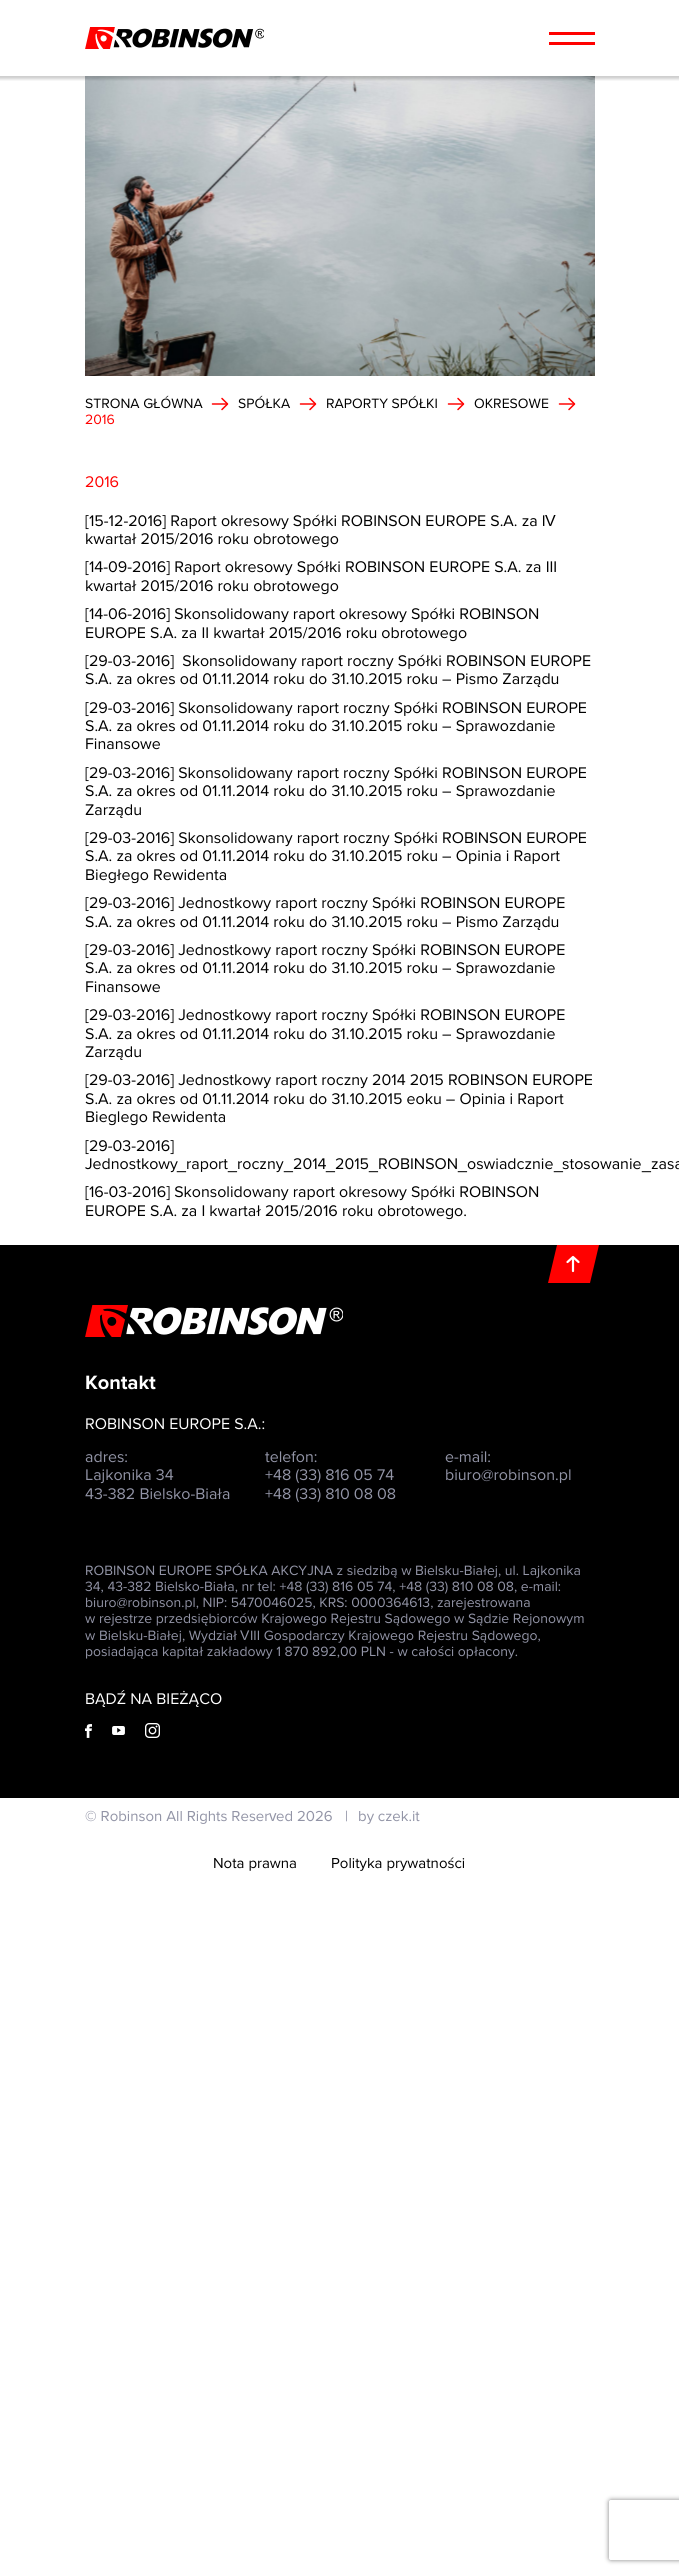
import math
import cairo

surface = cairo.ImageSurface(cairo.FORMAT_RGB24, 679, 2574)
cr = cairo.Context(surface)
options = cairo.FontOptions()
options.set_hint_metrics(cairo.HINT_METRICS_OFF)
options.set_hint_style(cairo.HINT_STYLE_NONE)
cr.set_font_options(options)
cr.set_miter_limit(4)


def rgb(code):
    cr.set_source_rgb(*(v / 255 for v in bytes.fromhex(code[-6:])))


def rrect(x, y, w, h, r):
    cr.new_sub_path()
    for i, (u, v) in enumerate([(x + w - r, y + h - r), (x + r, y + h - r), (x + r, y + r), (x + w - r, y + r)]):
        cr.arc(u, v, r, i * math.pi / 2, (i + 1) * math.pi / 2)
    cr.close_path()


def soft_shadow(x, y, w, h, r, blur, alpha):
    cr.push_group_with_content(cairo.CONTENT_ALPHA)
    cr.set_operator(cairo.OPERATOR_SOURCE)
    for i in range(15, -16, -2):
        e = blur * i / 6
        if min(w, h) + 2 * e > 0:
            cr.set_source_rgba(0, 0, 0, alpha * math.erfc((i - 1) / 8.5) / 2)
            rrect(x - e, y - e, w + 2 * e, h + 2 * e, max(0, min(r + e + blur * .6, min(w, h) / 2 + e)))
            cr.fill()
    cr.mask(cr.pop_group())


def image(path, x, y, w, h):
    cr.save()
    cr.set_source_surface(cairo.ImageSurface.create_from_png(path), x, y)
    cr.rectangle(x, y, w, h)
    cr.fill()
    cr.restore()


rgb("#ffffff")
cr.paint()
image("img/1.png", 85, 76, 510, 300)
cr.save()
cr.rectangle(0, 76, 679, 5)
cr.clip()
rgb("#000000")
soft_shadow(-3, -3, 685, 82, 0, 1.5, 0.2)
cr.restore()
image("img/2.png", 85, 27, 179, 22)
rgb("#ff0100")
cr.rectangle(549, 32, 46, 3)
cr.fill()
cr.rectangle(549, 42, 46, 3)
cr.fill()
cr.new_path()
cr.move_to(222, 398.5)
cr.line_to(227.5, 404)
cr.line_to(222, 409.5)
cr.set_line_width(1.5)
cr.set_line_cap(cairo.LINE_CAP_ROUND)
cr.set_line_join(cairo.LINE_JOIN_ROUND)
cr.stroke()
cr.new_path()
cr.move_to(227, 404)
cr.line_to(212.5, 404)
cr.set_line_join(cairo.LINE_JOIN_MITER)
cr.stroke()
cr.new_path()
cr.move_to(310, 398.5)
cr.line_to(315.5, 404)
cr.line_to(310, 409.5)
cr.set_line_join(cairo.LINE_JOIN_ROUND)
cr.stroke()
cr.new_path()
cr.move_to(315, 404)
cr.line_to(300.5, 404)
cr.set_line_join(cairo.LINE_JOIN_MITER)
cr.stroke()
cr.new_path()
cr.move_to(458, 398.5)
cr.line_to(463.5, 404)
cr.line_to(458, 409.5)
cr.set_line_join(cairo.LINE_JOIN_ROUND)
cr.stroke()
cr.new_path()
cr.move_to(463, 404)
cr.line_to(448.5, 404)
cr.set_line_join(cairo.LINE_JOIN_MITER)
cr.stroke()
cr.new_path()
cr.move_to(569, 398.5)
cr.line_to(574.5, 404)
cr.line_to(569, 409.5)
cr.set_line_join(cairo.LINE_JOIN_ROUND)
cr.stroke()
cr.new_path()
cr.move_to(574, 404)
cr.line_to(559.5, 404)
cr.set_line_join(cairo.LINE_JOIN_MITER)
cr.stroke()
rgb("#000000")
cr.rectangle(0, 1245, 679, 553)
cr.fill()
rgb("#ff0100")
cr.new_path()
cr.move_to(557, 1245)
cr.line_to(599, 1245)
cr.line_to(590, 1283)
cr.line_to(548, 1283)
cr.close_path()
cr.fill()
cr.new_path()
cr.move_to(567.5, 1262)
cr.line_to(573, 1257)
cr.line_to(578.5, 1262)
cr.move_to(573, 1257)
cr.line_to(573, 1271)
rgb("#ffffff")
cr.set_line_width(2.2)
cr.set_line_join(cairo.LINE_JOIN_ROUND)
cr.stroke()
image("img/3.png", 85, 1305, 258, 32)
image("img/4.png", 85, 1724, 7, 14)
image("img/5.png", 112, 1726, 13, 9)
image("img/6.png", 145, 1723, 15, 15)
cr.save()
cr.set_fill_rule(cairo.FILL_RULE_EVEN_ODD)
cr.new_path()
cr.move_to(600, 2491)
cr.line_to(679, 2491)
cr.line_to(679, 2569)
cr.line_to(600, 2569)
cr.close_path()
cr.move_to(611, 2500)
cr.line_to(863, 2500)
cr.curve_to(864, 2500, 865, 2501, 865, 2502)
cr.line_to(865, 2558)
cr.curve_to(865, 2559, 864, 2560, 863, 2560)
cr.line_to(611, 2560)
cr.curve_to(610, 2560, 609, 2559, 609, 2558)
cr.line_to(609, 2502)
cr.curve_to(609, 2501, 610, 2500, 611, 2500)
cr.close_path()
cr.clip()
rgb("#808080")
soft_shadow(609, 2500, 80, 60, 2, 2.5, 1)
cr.restore()
cr.select_font_face("Proxima Nova")
cr.set_font_size(14)
rgb("#000000")
for x, y, s in [
    (85, 408, "STRONA GŁÓWNA"),
    (238, 408, "SPÓŁKA"),
    (326, 408, "RAPORTY SPÓŁKI"),
    (474, 408, "OKRESOWE"),
]:
    cr.move_to(x, y)
    cr.show_text(s)
rgb("#ff0100")
cr.move_to(85, 424)
cr.show_text("2016")
cr.set_font_size(16)
cr.move_to(85, 487)
cr.show_text("2016")
rgb("#000000")
cr.move_to(85, 526)
cr.show_text("[15-12-2016] Raport okresowy Spółki ROBINSON EUROPE S.A. za I")
cr.select_font_face("Liberation Sans")
cr.move_to(545, 526)
cr.show_text("V")
cr.select_font_face("Proxima Nova")
for x, y, s in [
    (85, 544, "kwartał 2015/2016 roku obrotowego"),
    (85, 572, "[14-09-2016] Raport okresowy Spółki ROBINSON EUROPE S.A. za III"),
    (85, 591, "kwartał 2015/2016 roku obrotowego"),
    (85, 619, "[14-06-2016] Skonsolidowany raport okresowy Spółki ROBINSON"),
    (85, 638, "EUROPE S.A. za II kwartał 2015/2016 roku obrotowego"),
    (85, 666, "[29-03-2016]  Skonsolidowany raport roczny Spółki ROBINSON EUROPE"),
    (85, 684, "S.A. za okres od 01.11.2014 roku do 31.10.2015 roku – Pismo Zarządu"),
    (85, 713, "[29-03-2016] Skonsolidowany raport roczny Spółki ROBINSON EUROPE"),
    (85, 731, "S.A. za okres od 01.11.2014 roku do 31.10.2015 roku – Sprawozdanie"),
    (85, 749, "Finansowe"),
    (85, 778, "[29-03-2016] Skonsolidowany raport roczny Spółki ROBINSON EUROPE"),
    (85, 796, "S.A. za okres od 01.11.2014 roku do 31.10.2015 roku – Sprawozdanie"),
    (85, 815, "Zarządu"),
    (85, 843, "[29-03-2016] Skonsolidowany raport roczny Spółki ROBINSON EUROPE"),
    (85, 861, "S.A. za okres od 01.11.2014 roku do 31.10.2015 roku – Opinia i Raport"),
    (85, 880, "Biegłego Rewidenta"),
    (85, 908, "[29-03-2016] Jednostkowy raport roczny Spółki ROBINSON EUROPE"),
    (85, 927, "S.A. za okres od 01.11.2014 roku do 31.10.2015 roku – Pismo Zarządu"),
    (85, 955, "[29-03-2016] Jednostkowy raport roczny Spółki ROBINSON EUROPE"),
    (85, 973, "S.A. za okres od 01.11.2014 roku do 31.10.2015 roku – Sprawozdanie"),
    (85, 992, "Finansowe"),
    (85, 1020, "[29-03-2016] Jednostkowy raport roczny Spółki ROBINSON EUROPE"),
    (85, 1039, "S.A. za okres od 01.11.2014 roku do 31.10.2015 roku – Sprawozdanie"),
    (85, 1057, "Zarządu"),
    (85, 1085, "[29-03-2016] Jednostkowy raport roczny 2014 2015 ROBINSON EUROPE"),
    (85, 1104, "S.A. za okres od 01.11.2014 roku do 31.10.2015 eoku – Opinia i Raport"),
    (85, 1122, "Bieglego Rewidenta"),
    (85, 1151, "[29-03-2016]"),
    (85, 1169, "Jednostkowy"),
    (186, 1169, "raport"),
    (237, 1169, "roczny"),
    (293, 1169, "2014"),
    (335, 1169, "2015"),
    (378, 1169, "ROBINSON"),
    (467, 1169, "oswiadcznie"),
    (562, 1169, "stosowanie"),
    (651, 1169, "zasa"),
]:
    cr.move_to(x, y)
    cr.show_text(s)
cr.select_font_face("Liberation Sans")
for x, y, s in [
    (177, 1169, "_"),
    (228, 1169, "_"),
    (284, 1169, "_"),
    (326, 1169, "_"),
    (369, 1169, "_"),
    (458, 1169, "_"),
    (554, 1169, "_"),
    (642, 1169, "_"),
]:
    cr.move_to(x, y)
    cr.show_text(s)
cr.select_font_face("Proxima Nova")
cr.move_to(85, 1197)
cr.show_text("[16-03-2016] Skonsolidowany raport okresowy Spółki ROBINSON")
cr.move_to(85, 1216)
cr.show_text("EUROPE S.A. za I kwartał 2015/2016 roku obrotowego.")
cr.select_font_face("Proxima Nova", cairo.FONT_SLANT_NORMAL, cairo.FONT_WEIGHT_BOLD)
cr.set_font_size(20)
rgb("#ffffff")
cr.move_to(85, 1389)
cr.show_text("Kontakt")
cr.select_font_face("Proxima Nova")
cr.set_font_size(16)
cr.move_to(85, 1429)
cr.show_text("ROBINSON EUROPE S.A.:")
rgb("#9294a6")
for x, y, s in [
    (85, 1462, "adres:"),
    (85, 1480, "Lajkonika 34"),
    (85, 1499, "43-382 Bielsko-Biała"),
    (265, 1462, "telefon:"),
    (265, 1480, "+48 (33) 816 05 74"),
    (265, 1499, "+48 (33) 810 08 08"),
    (445, 1462, "e-mail:"),
    (445, 1480, "biuro@robinson.pl"),
]:
    cr.move_to(x, y)
    cr.show_text(s)
cr.set_font_size(14)
for x, y, s in [
    (85, 1575, "ROBINSON EUROPE SPÓŁKA AKCYJNA z siedzibą w Bielsku-Białej, ul. Lajkonika"),
    (85, 1591, "34, 43-382 Bielsko-Biała, nr tel: +48 (33) 816 05 74, +48 (33) 810 08 08, e-mail:"),
    (85, 1607, "biuro@robinson.pl, NIP: 5470046025, KRS: 0000364613, zarejestrowana"),
    (85, 1623, "w rejestrze przedsiębiorców Krajowego Rejestru Sądowego w Sądzie Rejonowym"),
    (85, 1640, "w Bielsku-Białej, Wydział"),
]:
    cr.move_to(x, y)
    cr.show_text(s)
cr.select_font_face("Liberation Sans")
cr.move_to(240, 1640)
cr.show_text("V")
cr.select_font_face("Proxima Nova")
cr.move_to(250, 1640)
cr.show_text("III Gospodarczy Krajowego Rejestru Sądowego,")
cr.move_to(85, 1656)
cr.show_text("posiadająca kapitał zakładowy 1 870 892,00 PLN - w całości opłacony.")
cr.set_font_size(16)
rgb("#ffffff")
cr.move_to(85, 1704)
cr.show_text("BĄDŹ NA BIEŻĄCO")
cr.set_font_size(15)
rgb("#9294a6")
cr.move_to(85, 1821)
cr.show_text("© Robinson All Rights Reser")
cr.select_font_face("Liberation Sans")
cr.move_to(269, 1821)
cr.show_text("v")
cr.select_font_face("Proxima Nova")
for x, y, s in [
    (276, 1821, "ed 2026"),
    (345, 1821, "|"),
    (358, 1821, "by czek.it"),
]:
    cr.move_to(x, y)
    cr.show_text(s)
rgb("#000000")
cr.move_to(213, 1868)
cr.show_text("Nota prawna")
cr.move_to(331, 1868)
cr.show_text("Polityka prywatności")
surface.write_to_png("page.png")
